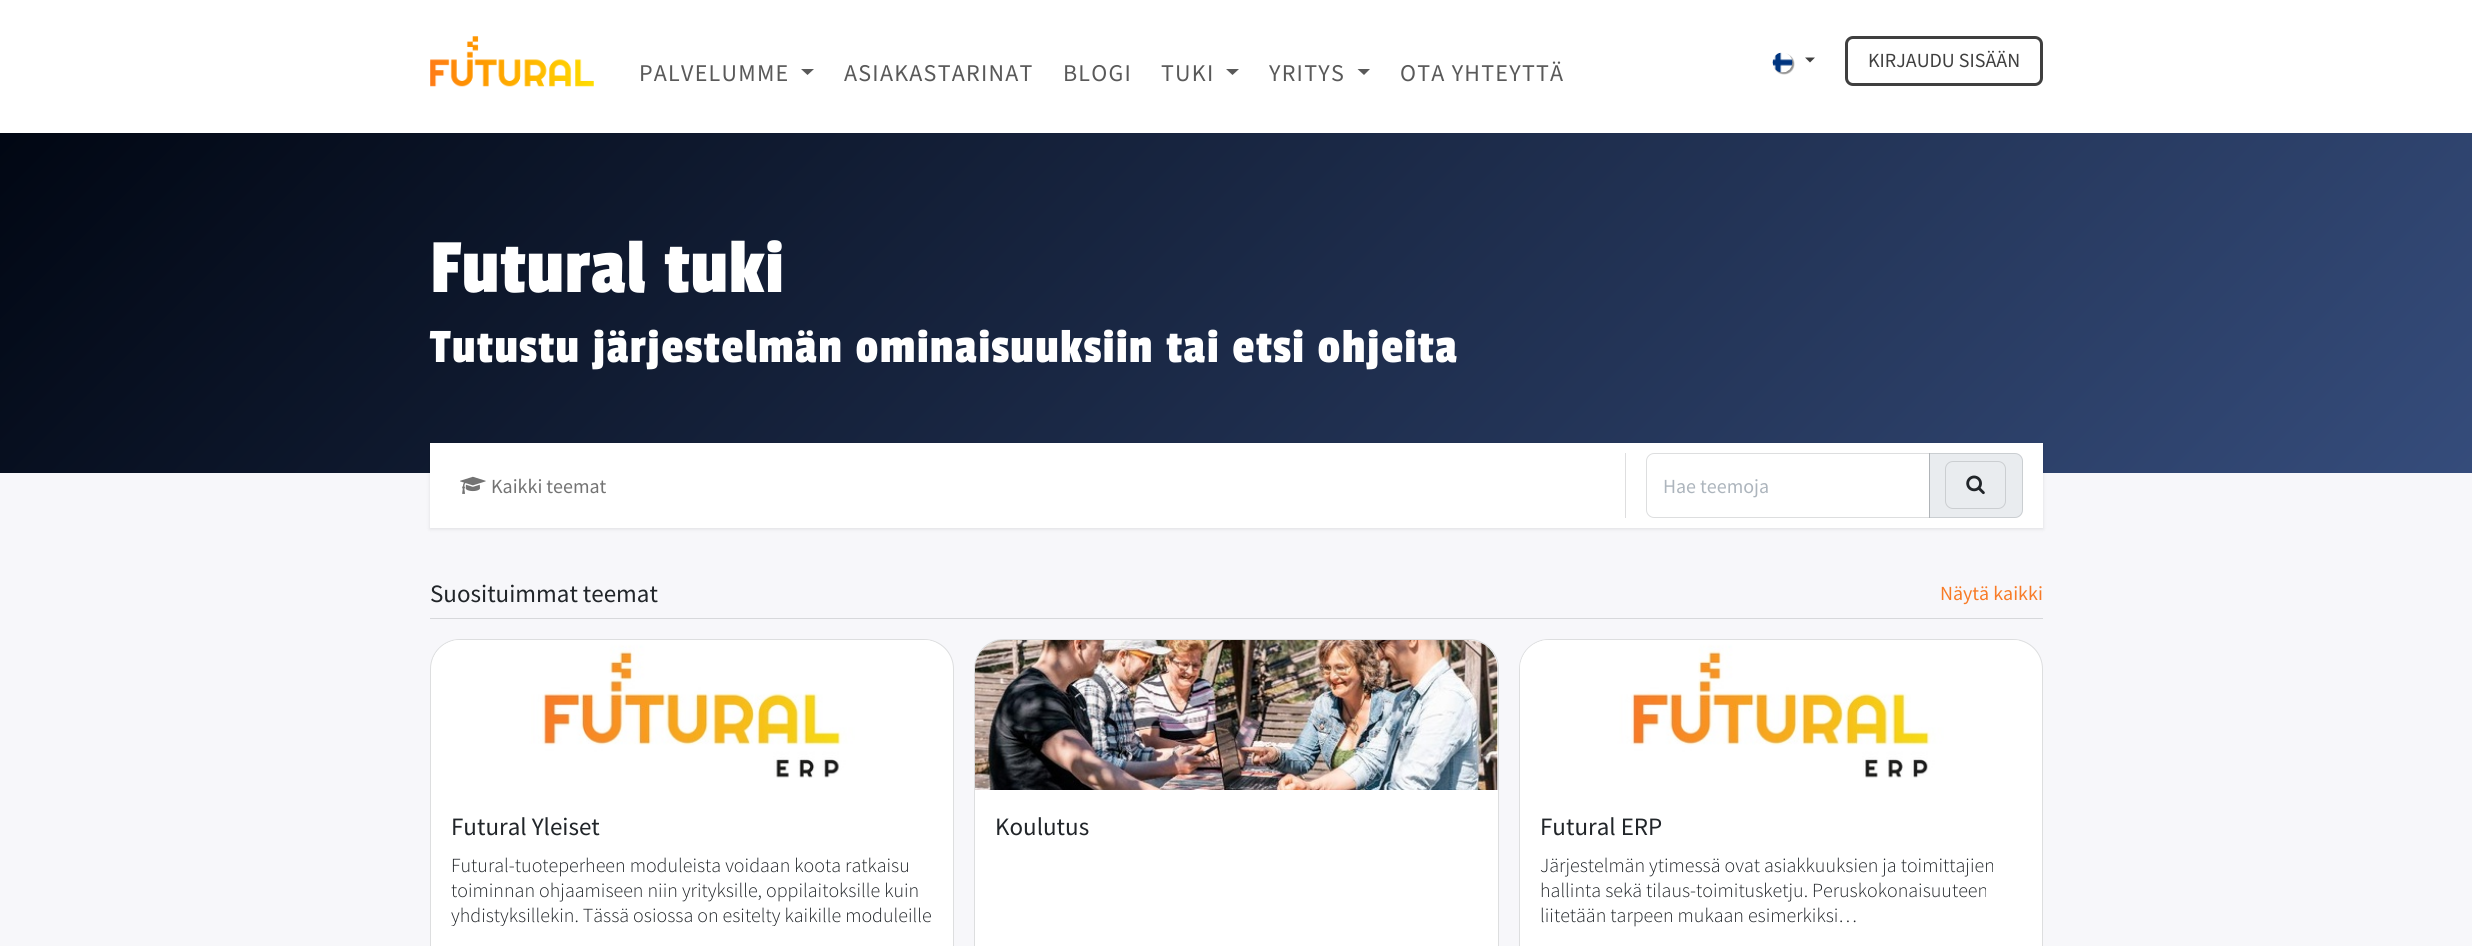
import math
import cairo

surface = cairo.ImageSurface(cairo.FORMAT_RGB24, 2472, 946)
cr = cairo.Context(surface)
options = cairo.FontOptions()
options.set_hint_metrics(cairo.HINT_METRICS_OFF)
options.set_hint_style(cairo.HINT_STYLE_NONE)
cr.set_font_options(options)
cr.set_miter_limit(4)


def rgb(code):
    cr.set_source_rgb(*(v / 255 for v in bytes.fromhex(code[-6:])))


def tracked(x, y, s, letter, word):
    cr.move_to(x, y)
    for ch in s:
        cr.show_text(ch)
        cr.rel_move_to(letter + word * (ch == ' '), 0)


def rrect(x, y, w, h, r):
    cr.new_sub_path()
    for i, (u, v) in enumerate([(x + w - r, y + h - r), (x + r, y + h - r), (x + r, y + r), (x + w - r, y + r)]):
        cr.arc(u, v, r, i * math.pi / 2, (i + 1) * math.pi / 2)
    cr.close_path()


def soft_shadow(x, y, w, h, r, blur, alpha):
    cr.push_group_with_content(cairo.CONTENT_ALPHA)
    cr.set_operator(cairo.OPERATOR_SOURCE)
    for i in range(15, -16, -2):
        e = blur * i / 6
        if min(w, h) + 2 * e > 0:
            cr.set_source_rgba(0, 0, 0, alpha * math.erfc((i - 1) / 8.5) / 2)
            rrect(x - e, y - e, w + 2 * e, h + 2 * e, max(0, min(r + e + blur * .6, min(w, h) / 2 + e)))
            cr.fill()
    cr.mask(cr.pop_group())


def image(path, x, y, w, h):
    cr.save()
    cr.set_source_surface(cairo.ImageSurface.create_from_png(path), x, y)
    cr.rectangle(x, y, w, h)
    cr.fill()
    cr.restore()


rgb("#ffffff")
cr.paint()
image("img/1.png", 430, 36, 164, 51)
rgb("#000000")
soft_shadow(1774, 54, 20, 20, 10, 0.5, 0.43)
image("img/2.png", 1772, 52, 21, 21)
rgb("#3f3f3f")
cr.new_path()
cr.move_to(1805, 57.5)
cr.line_to(1815, 57.5)
cr.line_to(1810, 62.5)
cr.close_path()
cr.fill()
rrect(1846.5, 37.5, 195, 47, 6.5)
cr.set_line_width(3)
cr.stroke()
rgb("#595959")
cr.new_path()
cr.move_to(801, 69)
cr.line_to(814, 69)
cr.line_to(807.5, 75)
cr.close_path()
cr.fill()
cr.new_path()
cr.move_to(1226, 69)
cr.line_to(1239, 69)
cr.line_to(1232.5, 75)
cr.close_path()
cr.fill()
cr.new_path()
cr.move_to(1357.5, 69)
cr.line_to(1370, 69)
cr.line_to(1364, 75)
cr.close_path()
cr.fill()
rgb("#f7f7fa")
cr.rectangle(0, 473, 2472, 473)
cr.fill()
gradient = cairo.LinearGradient(1939, 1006, 533, -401)
gradient.add_color_stop_rgba(0, 0.208, 0.298, 0.482, 1)
gradient.add_color_stop_rgba(1, 0.004, 0.027, 0.075, 1)
cr.set_source(gradient)
cr.rectangle(0, 133, 2472, 340)
cr.fill()
rgb("#000000")
soft_shadow(430, 444, 1613, 85, 0, 2, 0.1)
rgb("#ffffff")
cr.rectangle(430, 443, 1613, 85)
cr.fill()
image("img/3.png", 460, 476, 26, 18)
rgb("#dededf")
cr.rectangle(1625, 453, 1, 65)
cr.fill()
rgb("#e9ecef")
cr.new_path()
cr.move_to(1929, 453)
cr.line_to(2015, 453)
cr.curve_to(2019.5, 453, 2023, 456.5, 2023, 461)
cr.line_to(2023, 510)
cr.curve_to(2023, 514.5, 2019.5, 518, 2015, 518)
cr.line_to(1929, 518)
cr.close_path()
cr.fill()
cr.new_path()
cr.move_to(1929.5, 453.5)
cr.line_to(2015, 453.5)
cr.curve_to(2019, 453.5, 2022.5, 457, 2022.5, 461)
cr.line_to(2022.5, 510)
cr.curve_to(2022.5, 514, 2019, 517.5, 2015, 517.5)
cr.line_to(1929.5, 517.5)
cr.close_path()
cr.set_source_rgba(0.129, 0.145, 0.161, 0.15)
cr.set_line_width(1)
cr.stroke()
cr.new_path()
cr.move_to(1654, 453.5)
cr.line_to(1929.5, 453.5)
cr.line_to(1929.5, 517.5)
cr.line_to(1654, 517.5)
cr.curve_to(1650, 517.5, 1646.5, 514, 1646.5, 510)
cr.line_to(1646.5, 461)
cr.curve_to(1646.5, 457, 1650, 453.5, 1654, 453.5)
cr.close_path()
cr.stroke()
rrect(1945.5, 461.5, 60, 47, 7.5)
rgb("#cbced1")
cr.stroke()
image("img/4.png", 1966, 475, 19, 20)
rgb("#d7d8db")
cr.rectangle(430, 618, 1613, 1)
cr.fill()
rgb("#ffffff")
cr.new_path()
cr.move_to(460, 639)
cr.line_to(924, 639)
cr.curve_to(940.5, 639, 954, 652.5, 954, 669)
cr.line_to(954, 946)
cr.line_to(430, 946)
cr.line_to(430, 669)
cr.curve_to(430, 652.5, 443.5, 639, 460, 639)
cr.close_path()
cr.fill()
rrect(430.5, 639.5, 523, 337, 29.5)
cr.set_source_rgba(0.129, 0.145, 0.161, 0.15)
cr.stroke()
image("img/5.png", 433, 640, 503, 138)
rgb("#ffffff")
cr.new_path()
cr.move_to(1004, 639)
cr.line_to(1469, 639)
cr.curve_to(1485.5, 639, 1499, 652.5, 1499, 669)
cr.line_to(1499, 946)
cr.line_to(974, 946)
cr.line_to(974, 669)
cr.curve_to(974, 652.5, 987.5, 639, 1004, 639)
cr.close_path()
cr.fill()
rrect(974.5, 639.5, 524, 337, 29.5)
cr.set_source_rgba(0.129, 0.145, 0.161, 0.15)
cr.stroke()
image("img/6.png", 975, 640, 523, 150)
rgb("#ffffff")
cr.new_path()
cr.move_to(1549, 639)
cr.line_to(2013, 639)
cr.curve_to(2029.5, 639, 2043, 652.5, 2043, 669)
cr.line_to(2043, 946)
cr.line_to(1519, 946)
cr.line_to(1519, 669)
cr.curve_to(1519, 652.5, 1532.5, 639, 1549, 639)
cr.close_path()
cr.fill()
rrect(1519.5, 639.5, 523, 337, 29.5)
cr.set_source_rgba(0.129, 0.145, 0.161, 0.15)
cr.stroke()
image("img/7.png", 1520, 640, 499, 138)
cr.select_font_face("Source Sans 3")
cr.set_font_size(20)
rgb("#3f3f3f")
cr.move_to(1868, 67)
cr.show_text("KIRJAUDU SISÄÄN")
cr.set_font_size(24)
rgb("#595959")
for x, y, s in [
    (639, 81, "PALVELUMME"),
    (844, 81, "ASIAKASTARINAT"),
    (1063, 81, "BLOGI"),
    (1161, 81, "TUKI"),
    (1269, 81, "YRITYS"),
    (1400, 81, "OTA YHTEYTTÄ"),
]:
    tracked(x, y, s, 1.25, 0)
cr.select_font_face("Passion One")
cr.set_font_size(80)
rgb("#ffffff")
tracked(430, 292, "Futural tuki", 1, 0)
cr.set_font_size(50)
tracked(430, 362, "Tutustu järjestelmän ominaisuuksiin tai etsi ohjeita", 1.6, 0)
cr.select_font_face("Source Sans Pro")
cr.set_font_size(20)
rgb("#737373")
cr.move_to(491, 493)
cr.show_text("Kaikki teemat")
rgb("#adb5bd")
cr.move_to(1663, 493)
cr.show_text("Hae teemoja")
cr.set_font_size(25)
rgb("#212529")
cr.move_to(430, 602)
cr.show_text("Suosituimmat teemat")
cr.set_font_size(20)
rgb("#f87b27")
cr.move_to(1940, 600)
cr.show_text("Näytä kaikki")
cr.set_font_size(25)
rgb("#212529")
cr.move_to(451, 835)
cr.show_text("Futural Yleiset")
cr.select_font_face("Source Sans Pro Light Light")
cr.set_font_size(20)
cr.move_to(451, 872)
cr.show_text("Futural-tuoteperheen moduleista voidaan koota ratkaisu")
cr.move_to(451, 897)
cr.show_text("toiminnan ohjaamiseen niin yrityksille, oppilaitoksille kuin")
cr.save()
cr.rectangle(451, 851, 482, 75)
cr.clip()
cr.move_to(451, 922)
cr.show_text("yhdistyksillekin. Tässä osiossa on esitelty kaikille moduleille")
cr.restore()
cr.select_font_face("Source Sans Pro")
cr.set_font_size(25)
cr.move_to(995, 835)
cr.show_text("Koulutus")
cr.move_to(1540, 835)
cr.show_text("Futural ERP")
cr.select_font_face("Source Sans Pro Light Light")
cr.set_font_size(20)
for x, y, s in [
    (1540, 872, "Järjestelmän ytimessä ovat asiakkuuksien ja toimittajien"),
    (1540, 897, "hallinta sekä tilaus-toimitusketju. Peruskokonaisuuteen"),
    (1540, 922, "liitetään tarpeen mukaan esimerkiksi…"),
]:
    cr.move_to(x, y)
    cr.show_text(s)
surface.write_to_png("page.png")
